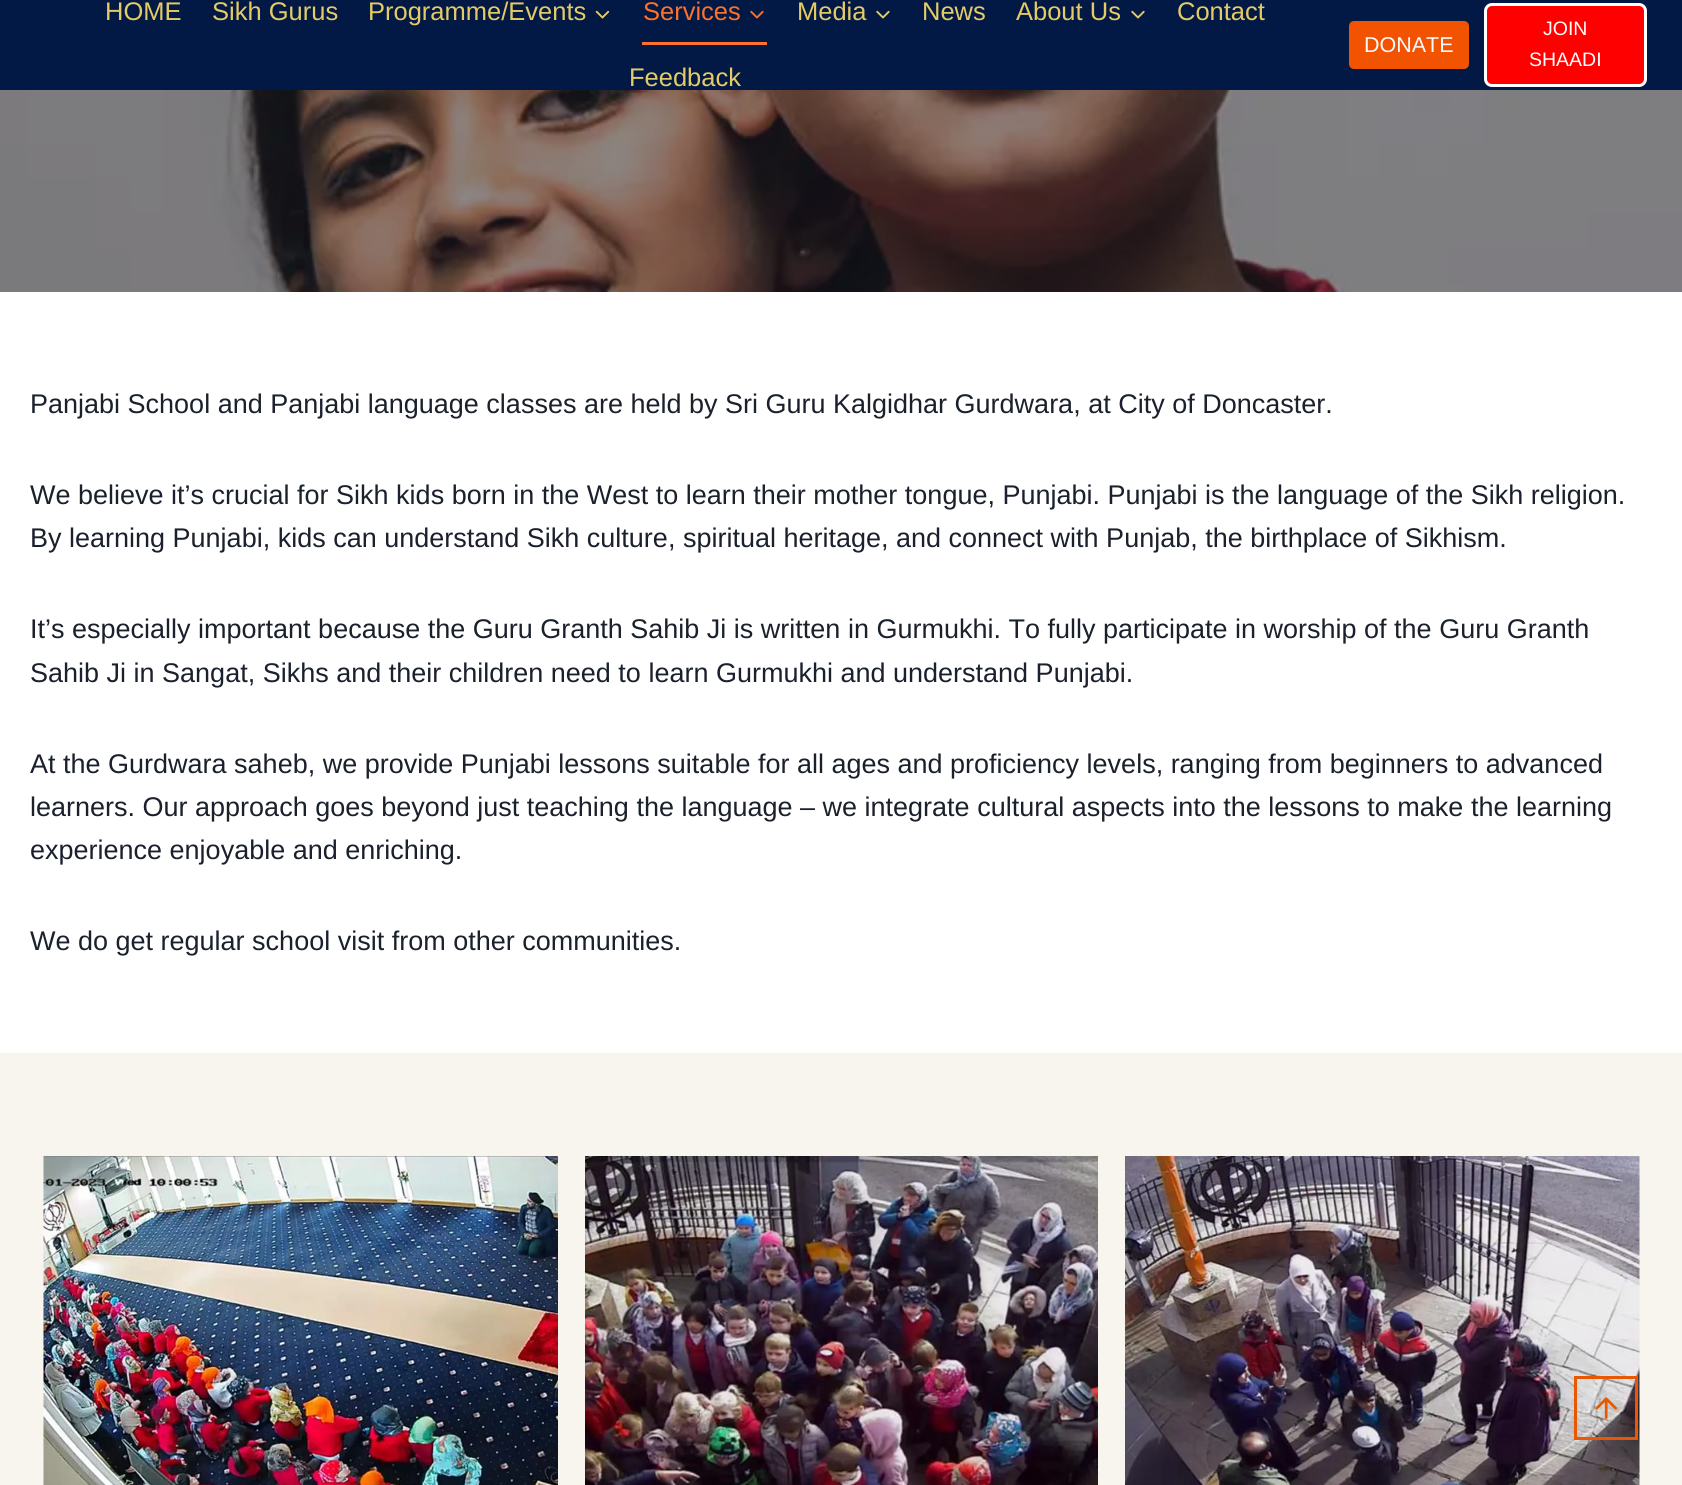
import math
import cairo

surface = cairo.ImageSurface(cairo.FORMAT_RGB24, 1682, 1485)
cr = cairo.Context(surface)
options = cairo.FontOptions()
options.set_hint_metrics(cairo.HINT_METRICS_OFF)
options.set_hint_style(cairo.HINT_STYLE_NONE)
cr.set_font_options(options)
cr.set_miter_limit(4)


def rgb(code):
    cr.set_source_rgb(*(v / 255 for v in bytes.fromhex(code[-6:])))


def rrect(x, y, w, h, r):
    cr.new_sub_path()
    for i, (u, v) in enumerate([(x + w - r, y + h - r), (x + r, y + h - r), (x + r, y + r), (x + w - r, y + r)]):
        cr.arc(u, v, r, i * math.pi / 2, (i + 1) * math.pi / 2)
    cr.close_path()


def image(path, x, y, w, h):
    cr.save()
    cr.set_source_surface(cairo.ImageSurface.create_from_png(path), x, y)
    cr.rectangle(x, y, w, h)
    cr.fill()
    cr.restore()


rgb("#ffffff")
cr.paint()
rgb("#021945")
cr.rectangle(0, 0, 1682, 90)
cr.fill()
image("img/1.png", 595, 10, 15, 9)
image("img/2.png", 750, 10, 14, 9)
rgb("#fc712d")
cr.rectangle(642, 42, 125, 3)
cr.fill()
image("img/3.png", 876, 10, 14, 9)
image("img/3.png", 1131, 10, 14, 9)
rgb("#f15301")
rrect(1349, 21, 120, 48, 5)
cr.fill()
rgb("#ff0000")
rrect(1485.5, 4.5, 160, 81, 6.5)
cr.fill_preserve()
rgb("#ffffff")
cr.set_line_width(3)
cr.stroke()
image("img/4.png", 0, 90, 1682, 202)
rgb("#f7f5ed")
cr.rectangle(0, 1053, 1682, 432)
cr.fill()
image("img/5.png", 43, 1156, 515, 329)
image("img/6.png", 585, 1156, 513, 329)
image("img/7.png", 1125, 1156, 515, 329)
cr.rectangle(1575.5, 1377.5, 61, 61)
rgb("#e85701")
cr.stroke()
image("img/8.png", 1595, 1397, 22, 22)
cr.select_font_face("Liberation Sans")
cr.set_font_size(25.5)
rgb("#e4cb65")
for x, y, s in [
    (105, 20, "HOME"),
    (212, 20, "Sikh Gurus"),
    (368, 20, "Programme/Events"),
]:
    cr.move_to(x, y)
    cr.show_text(s)
rgb("#fc712d")
cr.move_to(643, 20)
cr.show_text("Services")
rgb("#e4cb65")
for x, y, s in [
    (797, 20, "Media"),
    (922, 20, "News"),
    (1016, 20, "About Us"),
    (1177, 20, "Contact"),
    (629, 86, "Feedback"),
]:
    cr.move_to(x, y)
    cr.show_text(s)
cr.set_font_size(21.5)
rgb("#f7fafc")
cr.move_to(1364, 52)
cr.show_text("DONATE")
cr.set_font_size(19.5)
rgb("#ffffff")
cr.move_to(1543, 35)
cr.show_text("JOIN")
cr.move_to(1529, 66)
cr.show_text("SHAADI")
cr.set_font_size(27)
rgb("#1a202c")
for x, y, s in [
    (30, 413, "Panjabi School and Panjabi language classes are held by Sri Guru Kalgidhar Gurdwara, at City of Doncaster."),
    (30, 504, "We believe it’s crucial for Sikh kids born in the West to learn their mother tongue, Punjabi. Punjabi is the language of the Sikh religion."),
    (30, 547, "By learning Punjabi, kids can understand Sikh culture, spiritual heritage, and connect with Punjab, the birthplace of Sikhism."),
    (30, 638, "It’s especially important because the Guru Granth Sahib Ji is written in Gurmukhi. To fully participate in worship of the Guru Granth"),
    (30, 682, "Sahib Ji in Sangat, Sikhs and their children need to learn Gurmukhi and understand Punjabi."),
    (30, 773, "At the Gurdwara saheb, we provide Punjabi lessons suitable for all ages and proficiency levels, ranging from beginners to advanced"),
    (30, 816, "learners. Our approach goes beyond just teaching the language – we integrate cultural aspects into the lessons to make the learning"),
    (30, 859, "experience enjoyable and enriching."),
    (30, 950, "We do get regular school visit from other communities."),
]:
    cr.move_to(x, y)
    cr.show_text(s)
surface.write_to_png("page.png")
